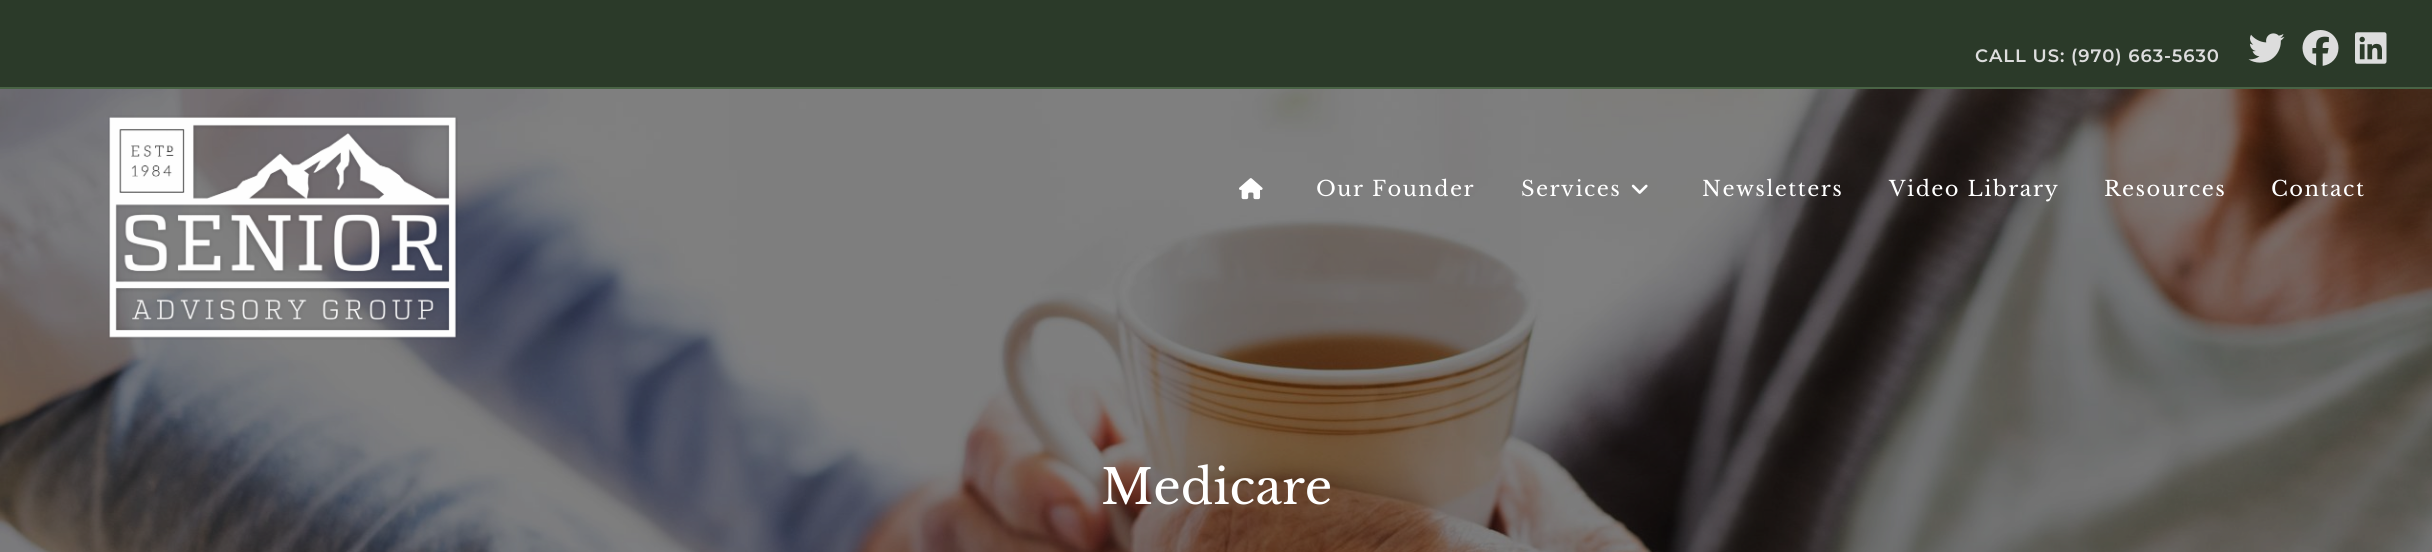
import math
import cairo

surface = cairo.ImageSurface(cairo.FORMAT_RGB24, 2432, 552)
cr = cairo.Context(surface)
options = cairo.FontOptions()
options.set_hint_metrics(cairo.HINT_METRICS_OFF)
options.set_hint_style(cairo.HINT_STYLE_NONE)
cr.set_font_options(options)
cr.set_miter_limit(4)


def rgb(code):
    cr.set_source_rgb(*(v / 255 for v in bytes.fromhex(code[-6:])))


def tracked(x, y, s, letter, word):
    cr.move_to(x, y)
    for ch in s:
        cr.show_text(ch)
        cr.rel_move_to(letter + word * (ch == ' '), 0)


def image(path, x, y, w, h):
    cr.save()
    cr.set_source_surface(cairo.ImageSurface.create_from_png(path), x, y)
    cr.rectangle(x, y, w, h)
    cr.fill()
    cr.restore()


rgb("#ffffff")
cr.paint()
rgb("#2b3a29")
cr.rectangle(0, 0, 2432, 87)
cr.fill()
rgb("#496345")
cr.rectangle(0, 87, 2432, 2)
cr.fill()
image("img/1.png", 2248, 33, 37, 30)
image("img/2.png", 2302, 30, 37, 36)
image("img/3.png", 2355, 32, 32, 32)
image("img/7.png", 0, 89, 2432, 463)
image("img/4.png", 108, 115, 350, 225)
image("img/5.png", 1239, 178, 24, 22)
image("img/6.png", 1631, 184, 17, 10)
cr.select_font_face("Montserrat Thin")
cr.set_font_size(18)
rgb("#dddddd")
tracked(1975, 62, "CALL US: (970) 663-5630", 0.9, 0)
cr.select_font_face("Libre Baskerville")
cr.set_font_size(21)
rgb("#ffffff")
for x, y, s in [
    (1316, 196, "Our Founder"),
    (1521, 196, "Services"),
    (1702, 196, "Newsletters"),
    (1889, 196, "Video Library"),
    (2104, 196, "Resources"),
    (2271, 196, "Contact"),
]:
    tracked(x, y, s, 1.5, 0)
cr.set_font_size(48)
cr.move_to(1101, 504)
cr.show_text("Medicare")
surface.write_to_png("page.png")
